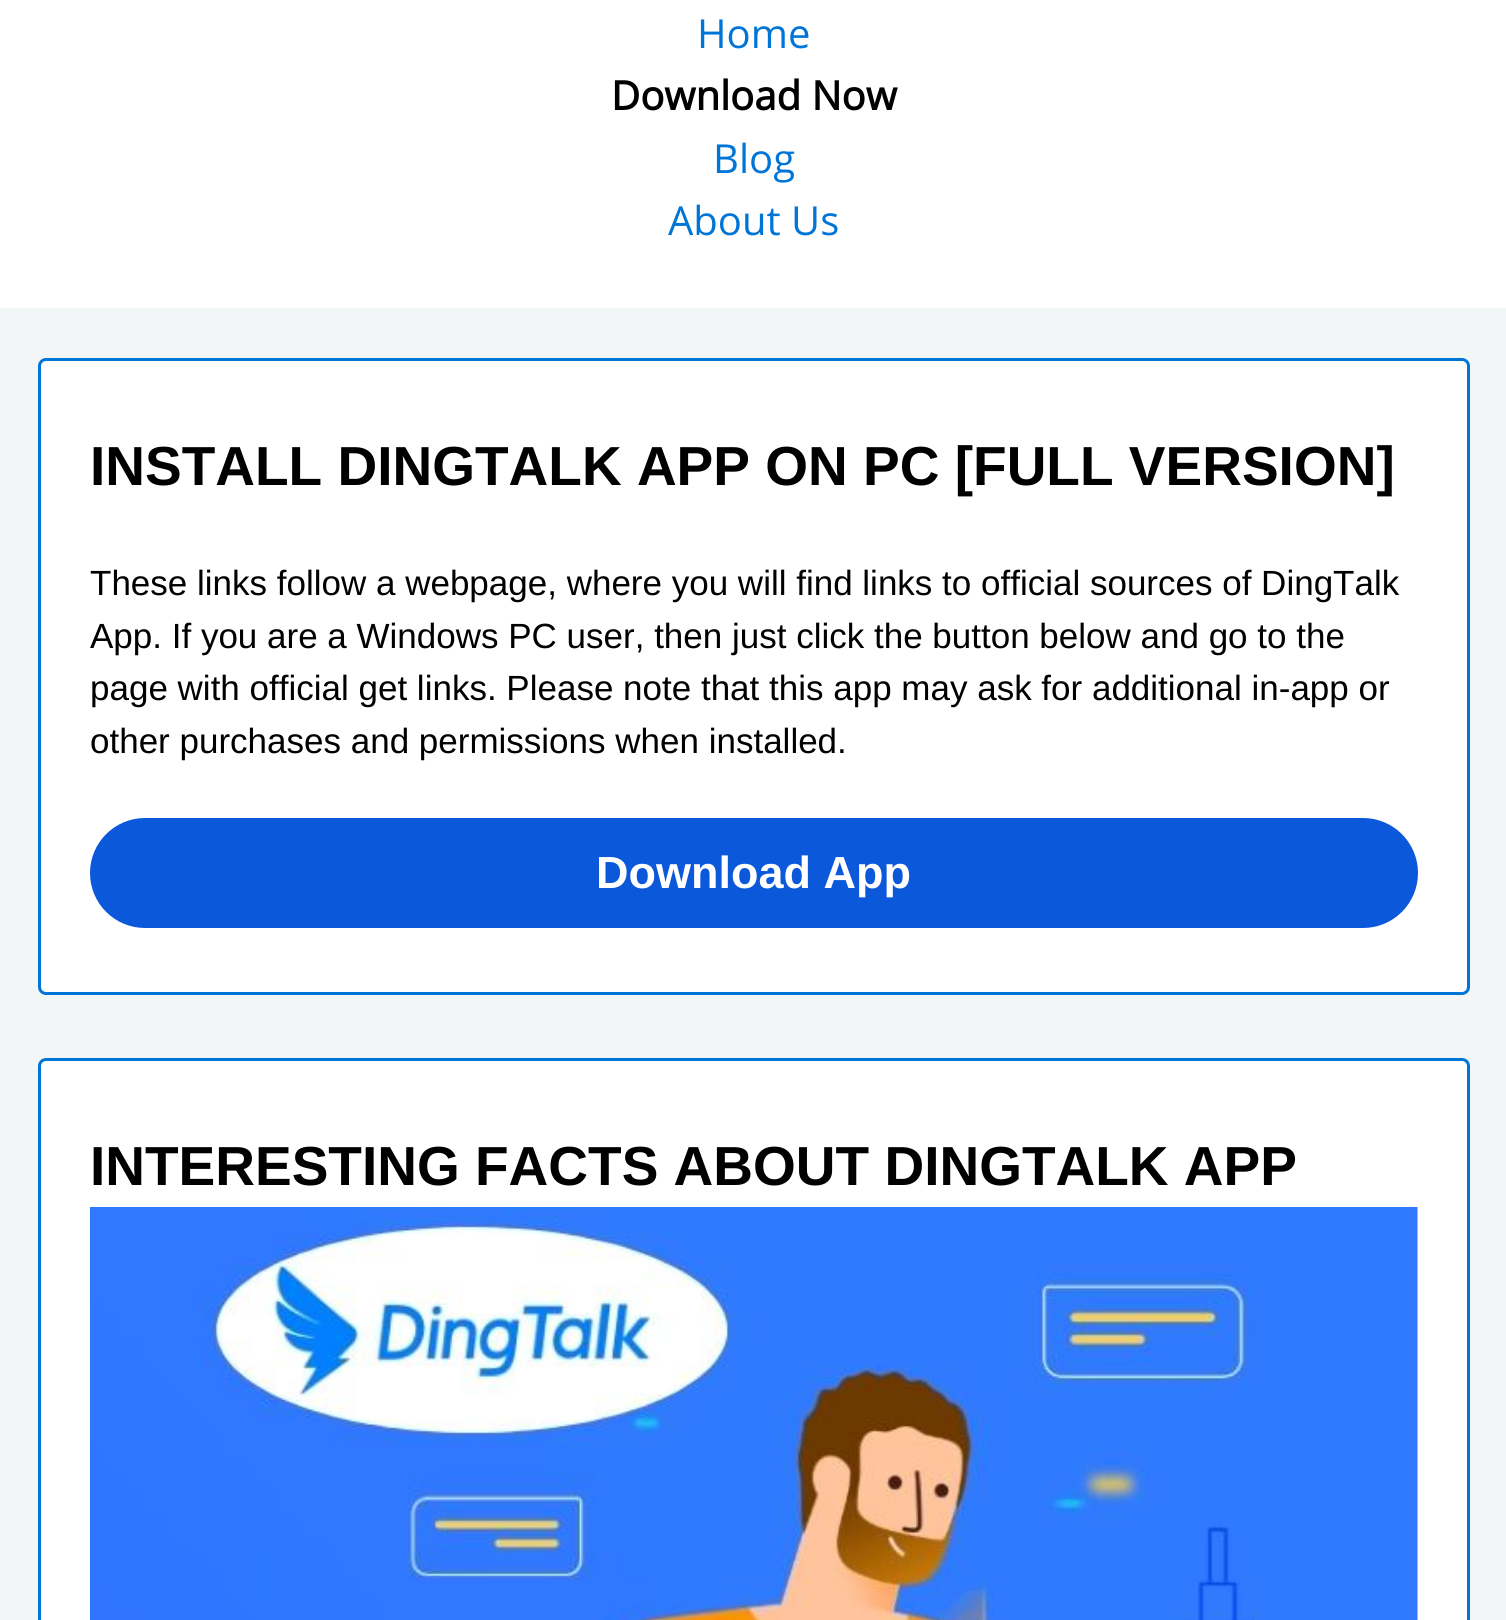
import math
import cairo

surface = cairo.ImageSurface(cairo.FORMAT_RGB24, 1506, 1620)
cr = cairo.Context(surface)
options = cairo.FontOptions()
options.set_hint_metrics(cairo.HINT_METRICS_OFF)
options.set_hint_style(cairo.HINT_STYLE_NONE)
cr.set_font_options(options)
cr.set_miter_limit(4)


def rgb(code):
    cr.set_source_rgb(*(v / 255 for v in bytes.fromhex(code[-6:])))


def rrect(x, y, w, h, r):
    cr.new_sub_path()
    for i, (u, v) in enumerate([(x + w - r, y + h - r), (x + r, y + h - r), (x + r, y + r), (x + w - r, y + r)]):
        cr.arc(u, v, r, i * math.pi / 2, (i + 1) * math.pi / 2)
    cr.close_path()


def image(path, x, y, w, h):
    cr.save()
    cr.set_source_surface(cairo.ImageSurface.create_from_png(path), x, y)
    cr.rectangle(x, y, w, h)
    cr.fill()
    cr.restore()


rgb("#ffffff")
cr.paint()
rgb("#f3f6f6")
cr.rectangle(0, 308, 1506, 1312)
cr.fill()
rgb("#ffffff")
rrect(39.5, 359.5, 1429, 634, 6.5)
cr.fill_preserve()
rgb("#0075d8")
cr.set_line_width(3)
cr.stroke()
rgb("#0b58da")
rrect(90, 818, 1328, 110, 55)
cr.fill()
rgb("#ffffff")
rrect(39.5, 1059.5, 1429, 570, 6.5)
cr.fill_preserve()
rgb("#0075d8")
cr.stroke()
image("img/1.png", 90, 1207, 1328, 413)
cr.select_font_face("Open Sans")
cr.set_font_size(40)
cr.move_to(697, 48)
cr.show_text("Home")
cr.select_font_face("Open Sans", cairo.FONT_SLANT_NORMAL, cairo.FONT_WEIGHT_BOLD)
rgb("#000000")
cr.move_to(611, 110)
cr.show_text("Download Now")
cr.select_font_face("Open Sans")
rgb("#0075d8")
cr.move_to(713, 173)
cr.show_text("Blog")
cr.move_to(668, 235)
cr.show_text("About Us")
cr.select_font_face("Liberation Sans", cairo.FONT_SLANT_NORMAL, cairo.FONT_WEIGHT_BOLD)
cr.set_font_size(55)
rgb("#000000")
cr.move_to(90, 485)
cr.show_text("INSTALL DINGTALK APP ON PC [FULL VERSION]")
cr.select_font_face("Liberation Sans")
cr.set_font_size(35)
for x, y, s in [
    (90, 595, "These links follow a webpage, where you will find links to official sources of DingTalk"),
    (90, 648, "App. If you are a Windows PC user, then just click the button below and go to the"),
    (90, 700, "page with official get links. Please note that this app may ask for additional in-app or"),
    (90, 753, "other purchases and permissions when installed."),
]:
    cr.move_to(x, y)
    cr.show_text(s)
cr.select_font_face("Liberation Sans", cairo.FONT_SLANT_NORMAL, cairo.FONT_WEIGHT_BOLD)
cr.set_font_size(45)
rgb("#ffffff")
cr.move_to(596, 888)
cr.show_text("Download App")
cr.set_font_size(55)
rgb("#000000")
cr.move_to(90, 1185)
cr.show_text("INTERESTING FACTS ABOUT DINGTALK APP")
surface.write_to_png("page.png")
